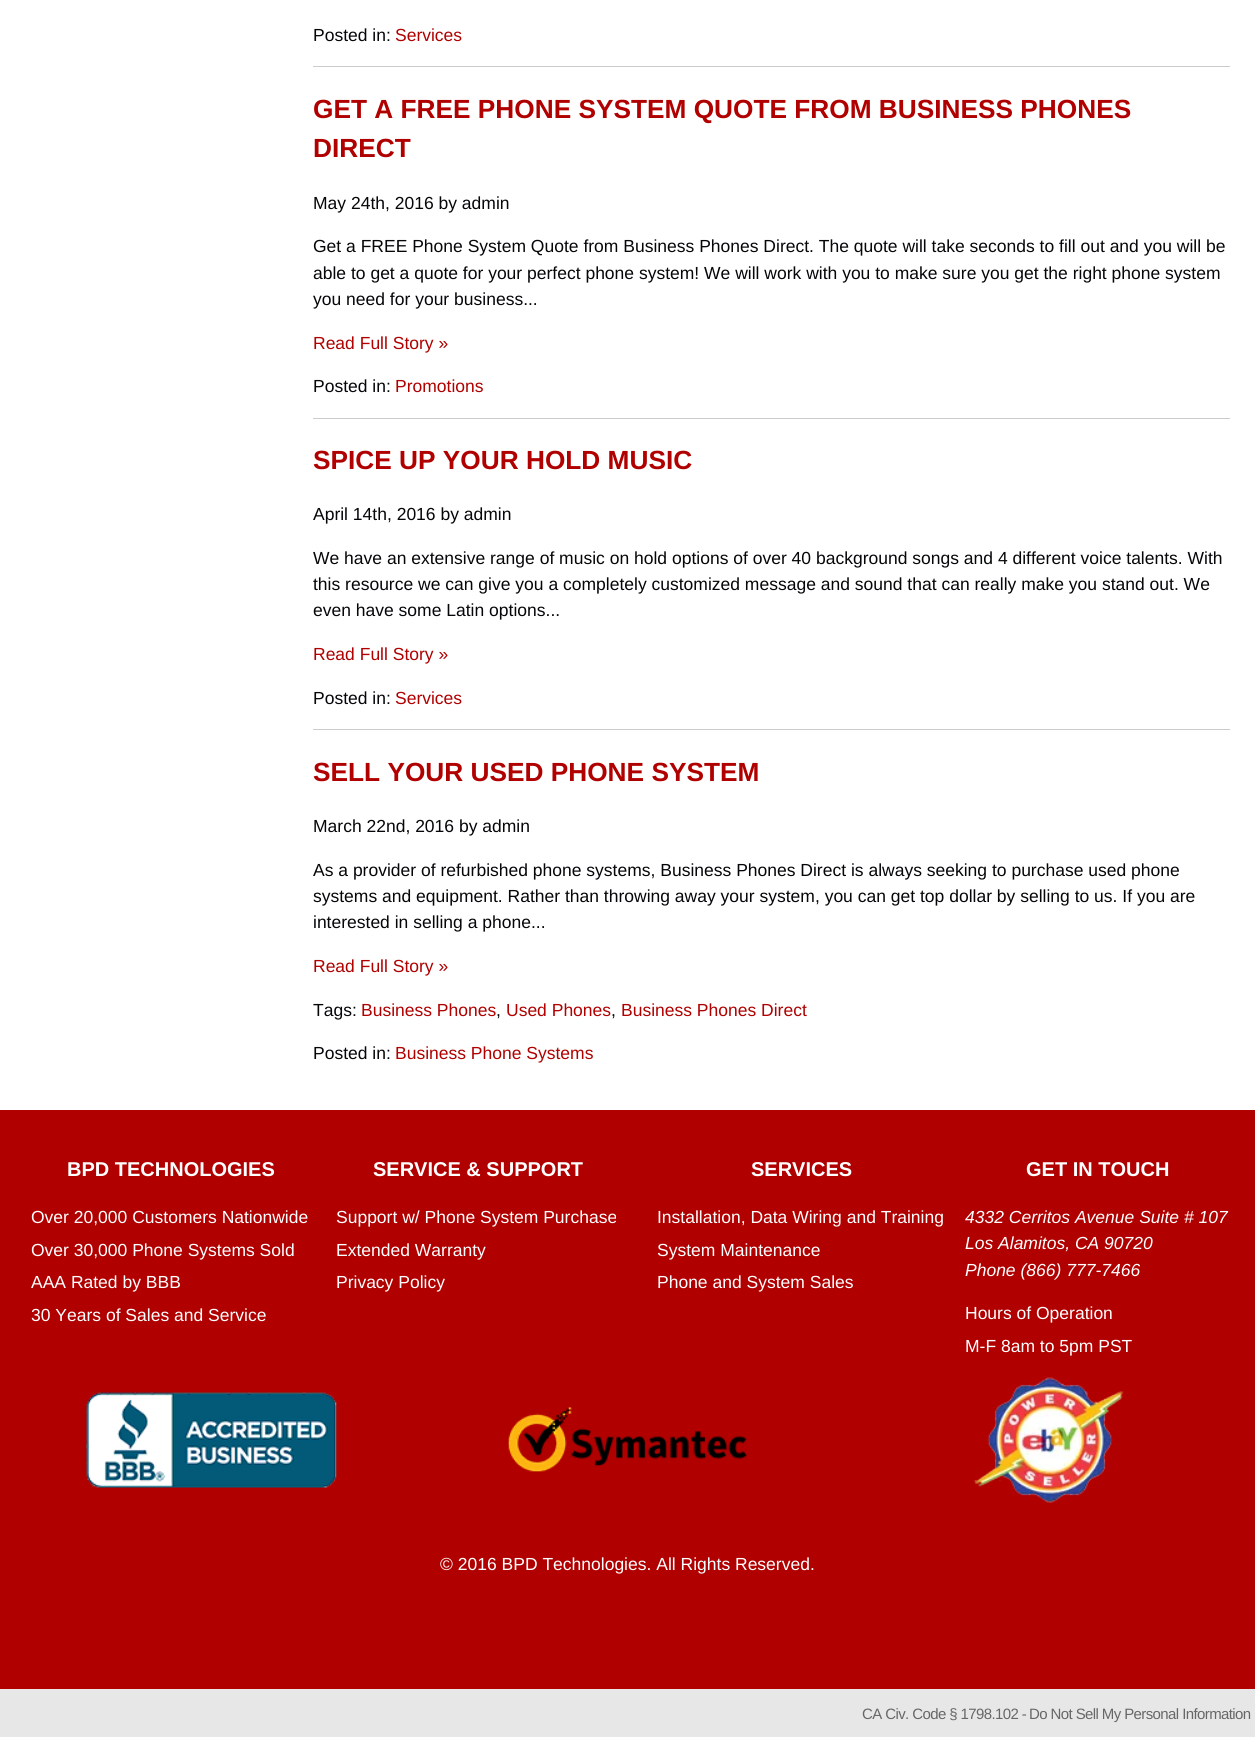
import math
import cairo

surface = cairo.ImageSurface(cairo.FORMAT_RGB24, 1255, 1737)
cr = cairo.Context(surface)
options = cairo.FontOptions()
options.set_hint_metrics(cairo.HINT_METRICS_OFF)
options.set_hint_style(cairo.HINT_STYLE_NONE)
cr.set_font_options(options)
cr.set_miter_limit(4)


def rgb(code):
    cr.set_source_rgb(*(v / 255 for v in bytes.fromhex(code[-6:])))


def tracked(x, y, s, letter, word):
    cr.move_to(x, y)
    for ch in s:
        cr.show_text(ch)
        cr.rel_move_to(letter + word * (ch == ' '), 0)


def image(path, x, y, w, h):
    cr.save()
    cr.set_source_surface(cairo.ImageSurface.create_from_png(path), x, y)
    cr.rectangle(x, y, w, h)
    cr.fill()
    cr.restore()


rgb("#ffffff")
cr.paint()
for x, y, w, h, color in [
    (313, 66, 917, 1, "#cccccc"),
    (313, 418, 917, 1, "#cccccc"),
    (313, 729, 917, 1, "#cccccc"),
    (0, 1110, 1255, 579, "#b00000"),
]:
    rgb(color)
    cr.rectangle(x, y, w, h)
    cr.fill()
image("img/1.png", 86, 1392, 251, 96)
image("img/2.png", 508, 1407, 239, 65)
image("img/3.png", 973, 1377, 151, 126)
rgb("#e7e7e7")
cr.rectangle(0, 1689, 1255, 48)
cr.fill()
cr.select_font_face("Liberation Sans")
cr.set_font_size(17.5)
rgb("#050608")
cr.move_to(313, 41)
cr.show_text("Posted in:")
rgb("#b00000")
cr.move_to(395, 41)
cr.show_text("Services")
cr.select_font_face("Liberation Sans", cairo.FONT_SLANT_NORMAL, cairo.FONT_WEIGHT_BOLD)
cr.set_font_size(26.25)
cr.move_to(313, 118)
cr.show_text("GET A FREE PHONE SYSTEM QUOTE FROM BUSINESS PHONES")
cr.move_to(313, 157)
cr.show_text("DIRECT")
cr.select_font_face("Liberation Sans")
cr.set_font_size(17.5)
rgb("#050608")
for x, y, s in [
    (313, 209, "May 24th, 2016 by admin"),
    (313, 252, "Get a FREE Phone System Quote from Business Phones Direct. The quote will take seconds to fill out and you will be"),
    (313, 279, "able to get a quote for your perfect phone system! We will work with you to make sure you get the right phone system"),
    (313, 305, "you need for your business..."),
]:
    cr.move_to(x, y)
    cr.show_text(s)
rgb("#b00000")
cr.move_to(313, 349)
cr.show_text("Read Full Story »")
rgb("#050608")
cr.move_to(313, 392)
cr.show_text("Posted in:")
rgb("#b00000")
cr.move_to(395, 392)
cr.show_text("Promotions")
cr.select_font_face("Liberation Sans", cairo.FONT_SLANT_NORMAL, cairo.FONT_WEIGHT_BOLD)
cr.set_font_size(26.25)
cr.move_to(313, 469)
cr.show_text("SPICE UP YOUR HOLD MUSIC")
cr.select_font_face("Liberation Sans")
cr.set_font_size(17.5)
rgb("#050608")
for x, y, s in [
    (313, 520, "April 14th, 2016 by admin"),
    (313, 564, "We have an extensive range of music on hold options of over 40 background songs and 4 different voice talents. With"),
    (313, 590, "this resource we can give you a completely customized message and sound that can really make you stand out. We"),
    (313, 616, "even have some Latin options..."),
]:
    cr.move_to(x, y)
    cr.show_text(s)
rgb("#b00000")
cr.move_to(313, 660)
cr.show_text("Read Full Story »")
rgb("#050608")
cr.move_to(313, 704)
cr.show_text("Posted in:")
rgb("#b00000")
cr.move_to(395, 704)
cr.show_text("Services")
cr.select_font_face("Liberation Sans", cairo.FONT_SLANT_NORMAL, cairo.FONT_WEIGHT_BOLD)
cr.set_font_size(26.25)
cr.move_to(313, 781)
cr.show_text("SELL YOUR USED PHONE SYSTEM")
cr.select_font_face("Liberation Sans")
cr.set_font_size(17.5)
rgb("#050608")
for x, y, s in [
    (313, 832, "March 22nd, 2016 by admin"),
    (313, 876, "As a provider of refurbished phone systems, Business Phones Direct is always seeking to purchase used phone"),
    (313, 902, "systems and equipment. Rather than throwing away your system, you can get top dollar by selling to us. If you are"),
    (313, 928, "interested in selling a phone..."),
]:
    cr.move_to(x, y)
    cr.show_text(s)
rgb("#b00000")
cr.move_to(313, 972)
cr.show_text("Read Full Story »")
rgb("#050608")
cr.move_to(313, 1016)
cr.show_text("Tags:")
rgb("#b00000")
cr.move_to(361, 1016)
cr.show_text("Business Phones")
rgb("#050608")
cr.move_to(496, 1016)
cr.show_text(",")
rgb("#b00000")
cr.move_to(506, 1016)
cr.show_text("Used Phones")
rgb("#050608")
cr.move_to(611, 1016)
cr.show_text(",")
rgb("#b00000")
cr.move_to(621, 1016)
cr.show_text("Business Phones Direct")
rgb("#050608")
cr.move_to(313, 1059)
cr.show_text("Posted in:")
rgb("#b00000")
cr.move_to(395, 1059)
cr.show_text("Business Phone Systems")
cr.select_font_face("Liberation Sans", cairo.FONT_SLANT_NORMAL, cairo.FONT_WEIGHT_BOLD)
cr.set_font_size(20)
rgb("#ffffff")
cr.move_to(67, 1176)
cr.show_text("BPD TECHNOLOGIES")
cr.select_font_face("Liberation Sans")
cr.set_font_size(17.5)
for x, y, s in [
    (31, 1223, "Over 20,000 Customers Nationwide"),
    (31, 1256, "Over 30,000 Phone Systems Sold"),
    (31, 1288, "AAA Rated by BBB"),
    (31, 1321, "30 Years of Sales and Service"),
]:
    cr.move_to(x, y)
    cr.show_text(s)
cr.select_font_face("Liberation Sans", cairo.FONT_SLANT_NORMAL, cairo.FONT_WEIGHT_BOLD)
cr.set_font_size(20)
cr.move_to(373, 1176)
cr.show_text("SERVICE & SUPPORT")
cr.select_font_face("Liberation Sans")
cr.set_font_size(17.5)
for x, y, s in [
    (336, 1223, "Support w/ Phone System Purchase"),
    (336, 1256, "Extended Warranty"),
    (336, 1288, "Privacy Policy"),
]:
    cr.move_to(x, y)
    cr.show_text(s)
cr.select_font_face("Liberation Sans", cairo.FONT_SLANT_NORMAL, cairo.FONT_WEIGHT_BOLD)
cr.set_font_size(20)
cr.move_to(751, 1176)
cr.show_text("SERVICES")
cr.select_font_face("Liberation Sans")
cr.set_font_size(17.5)
for x, y, s in [
    (657, 1223, "Installation, Data Wiring and Training"),
    (657, 1256, "System Maintenance"),
    (657, 1288, "Phone and System Sales"),
]:
    cr.move_to(x, y)
    cr.show_text(s)
cr.select_font_face("Liberation Sans", cairo.FONT_SLANT_NORMAL, cairo.FONT_WEIGHT_BOLD)
cr.set_font_size(20)
cr.move_to(1026, 1176)
cr.show_text("GET IN TOUCH")
cr.select_font_face("Liberation Sans", cairo.FONT_SLANT_ITALIC)
cr.set_font_size(17.5)
for x, y, s in [
    (965, 1223, "4332 Cerritos Avenue Suite # 107"),
    (965, 1249, "Los Alamitos, CA 90720"),
    (965, 1276, "Phone (866) 777-7466"),
]:
    cr.move_to(x, y)
    cr.show_text(s)
cr.select_font_face("Liberation Sans")
for x, y, s in [
    (965, 1319, "Hours of Operation"),
    (965, 1352, "M-F 8am to 5pm PST"),
    (440, 1570, "© 2016 BPD Technologies. All Rights Reserved."),
]:
    cr.move_to(x, y)
    cr.show_text(s)
cr.set_font_size(15)
rgb("#676767")
tracked(862, 1719, "CA Civ. Code § 1798.102 -", -0.6, 0)
tracked(1029, 1719, "Do Not Sell My Personal Information", -0.6, 0)
surface.write_to_png("page.png")
